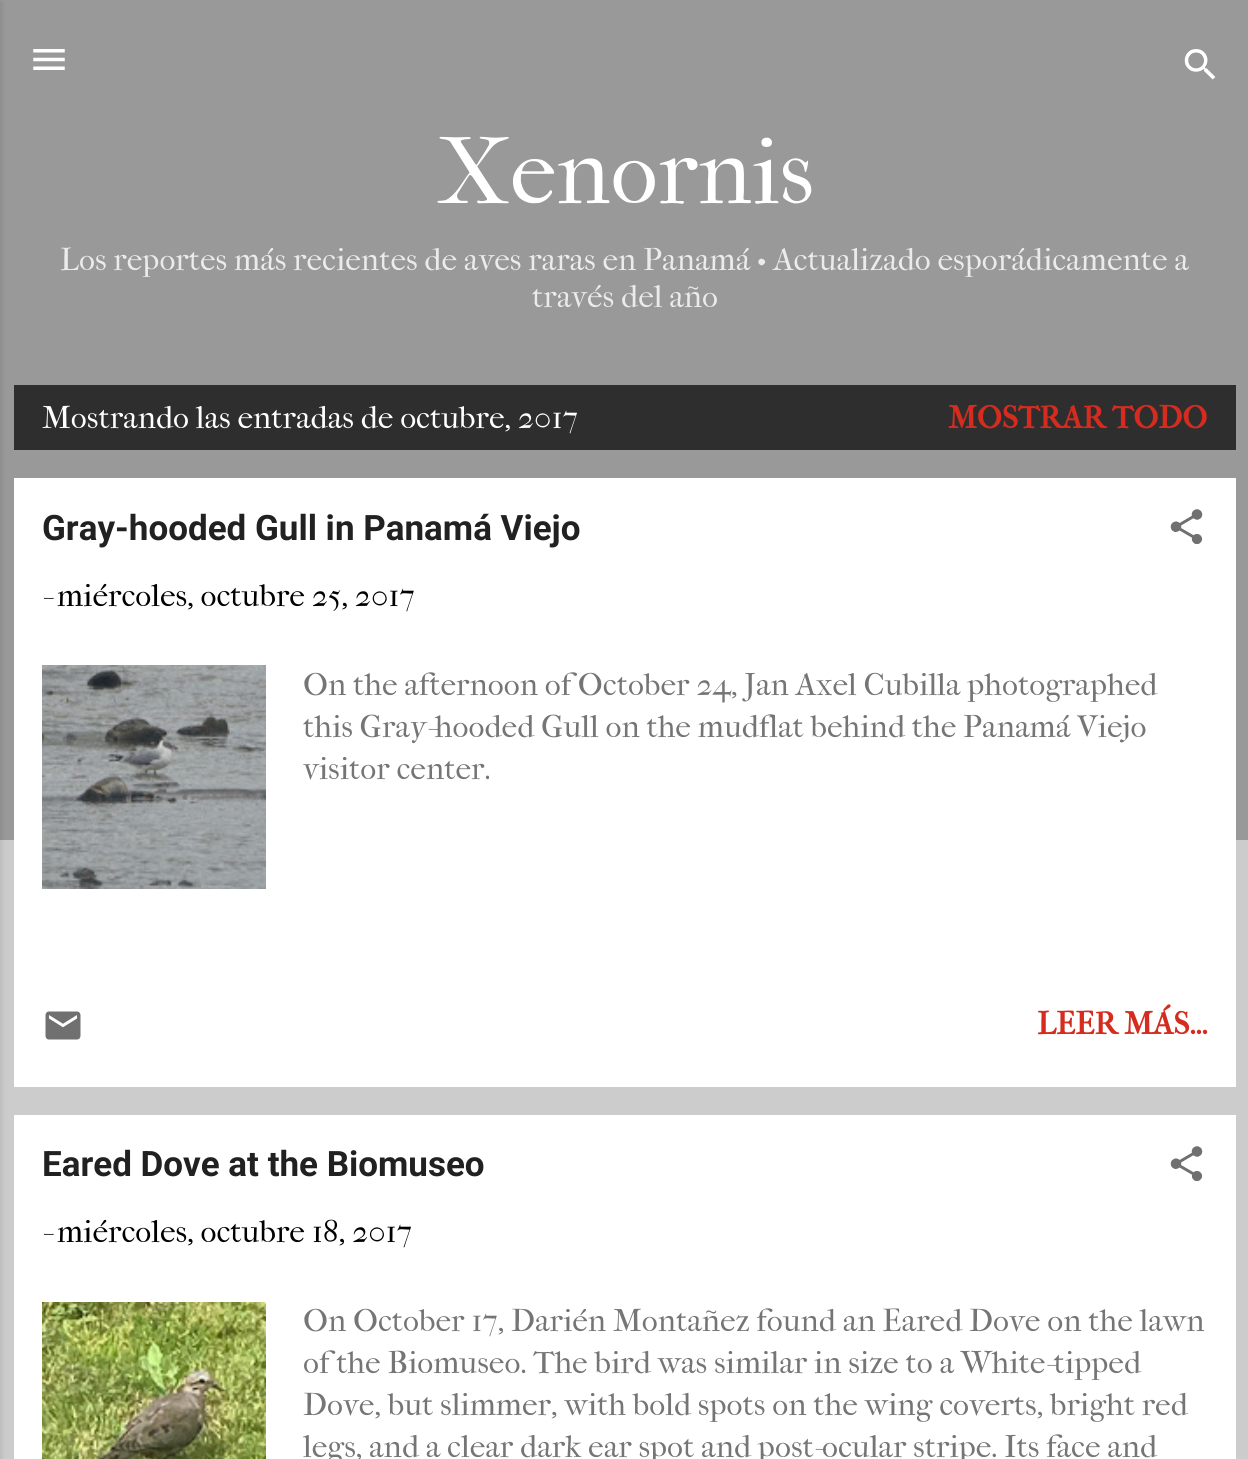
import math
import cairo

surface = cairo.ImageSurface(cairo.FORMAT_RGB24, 1248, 1459)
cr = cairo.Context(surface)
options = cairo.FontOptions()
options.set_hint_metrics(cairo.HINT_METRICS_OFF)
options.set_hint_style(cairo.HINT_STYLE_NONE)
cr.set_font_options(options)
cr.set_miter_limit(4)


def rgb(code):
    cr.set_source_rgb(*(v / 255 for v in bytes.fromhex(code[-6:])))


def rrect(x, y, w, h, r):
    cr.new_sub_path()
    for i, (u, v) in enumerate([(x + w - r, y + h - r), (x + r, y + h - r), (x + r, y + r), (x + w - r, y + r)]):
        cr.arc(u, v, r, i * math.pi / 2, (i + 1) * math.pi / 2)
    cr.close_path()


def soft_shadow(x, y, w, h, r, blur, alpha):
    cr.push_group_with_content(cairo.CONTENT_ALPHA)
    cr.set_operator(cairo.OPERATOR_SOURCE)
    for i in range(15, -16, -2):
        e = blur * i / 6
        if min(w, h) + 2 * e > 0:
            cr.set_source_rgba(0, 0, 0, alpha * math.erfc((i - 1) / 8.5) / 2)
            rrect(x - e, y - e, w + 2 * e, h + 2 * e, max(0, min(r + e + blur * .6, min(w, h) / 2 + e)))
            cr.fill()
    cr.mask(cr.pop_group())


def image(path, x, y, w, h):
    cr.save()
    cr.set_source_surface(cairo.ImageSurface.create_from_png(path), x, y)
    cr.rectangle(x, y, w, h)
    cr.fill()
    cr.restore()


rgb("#cccccc")
cr.paint()
rgb("#999999")
cr.rectangle(0, 0, 1248, 840)
cr.fill()
rgb("#000000")
soft_shadow(-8, 2, 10, 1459, 0, 2.5, 0.1)
image("img/1.png", 33, 49, 32, 21)
image("img/2.png", 1184, 49, 32, 31)
rgb("#2e2e2e")
cr.rectangle(14, 385, 1222, 65)
cr.fill()
rgb("#ffffff")
cr.rectangle(14, 478, 1222, 609)
cr.fill()
image("img/3.png", 1170, 509, 33, 35)
image("img/4.png", 42, 665, 224, 224)
image("img/5.png", 45, 1011, 36, 29)
cr.rectangle(14, 1115, 1222, 344)
cr.fill()
image("img/3.png", 1170, 1146, 33, 35)
image("img/6.png", 42, 1302, 224, 157)
cr.select_font_face("IM FELL French Canon")
cr.set_font_size(93.5)
cr.move_to(437, 203)
cr.show_text("Xenornis")
cr.set_font_size(31.5)
rgb("#ebebeb")
cr.move_to(60, 270)
cr.show_text("Los reportes más recientes de aves raras en Panamá • Actualizado esporádicamente a")
cr.move_to(532, 307)
cr.show_text("través del año")
rgb("#ffffff")
cr.move_to(42, 428)
cr.show_text("Mostrando las entradas de octubre, 2017")
cr.select_font_face("IM FELL French Canon", cairo.FONT_SLANT_NORMAL, cairo.FONT_WEIGHT_BOLD)
rgb("#d52c1f")
cr.move_to(948, 428)
cr.show_text("MOSTRAR TODO")
cr.select_font_face("Roboto", cairo.FONT_SLANT_NORMAL, cairo.FONT_WEIGHT_BOLD)
cr.set_font_size(35)
rgb("#212121")
cr.move_to(42, 540)
cr.show_text("Gray-hooded Gull in Panamá Viejo")
cr.select_font_face("IM FELL French Canon")
cr.set_font_size(31.5)
rgb("#000000")
cr.move_to(42, 606)
cr.show_text("- miércoles, octubre 25, 2017")
rgb("#757575")
for x, y, s in [
    (303, 695, "On the afternoon of October 24, Jan Axel Cubilla photographed"),
    (303, 737, "this Gray-hooded Gull on the mudflat behind the Panamá Viejo"),
    (303, 779, "visitor center."),
]:
    cr.move_to(x, y)
    cr.show_text(s)
cr.select_font_face("IM FELL French Canon", cairo.FONT_SLANT_NORMAL, cairo.FONT_WEIGHT_BOLD)
rgb("#d52c1f")
cr.move_to(1037, 1034)
cr.show_text("LEER MÁS...")
cr.select_font_face("Roboto", cairo.FONT_SLANT_NORMAL, cairo.FONT_WEIGHT_BOLD)
cr.set_font_size(35)
rgb("#212121")
cr.move_to(42, 1176)
cr.show_text("Eared Dove at the Biomuseo")
cr.select_font_face("IM FELL French Canon")
cr.set_font_size(31.5)
rgb("#000000")
cr.move_to(42, 1242)
cr.show_text("- miércoles, octubre 18, 2017")
rgb("#757575")
for x, y, s in [
    (303, 1331, "On October 17, Darién Montañez found an Eared Dove on the lawn"),
    (303, 1373, "of the Biomuseo. The bird was similar in size to a White-tipped"),
    (303, 1415, "Dove, but slimmer, with bold spots on the wing coverts, bright red"),
    (303, 1457, "legs, and a clear dark ear spot and post-ocular stripe. Its face and"),
]:
    cr.move_to(x, y)
    cr.show_text(s)
surface.write_to_png("page.png")
